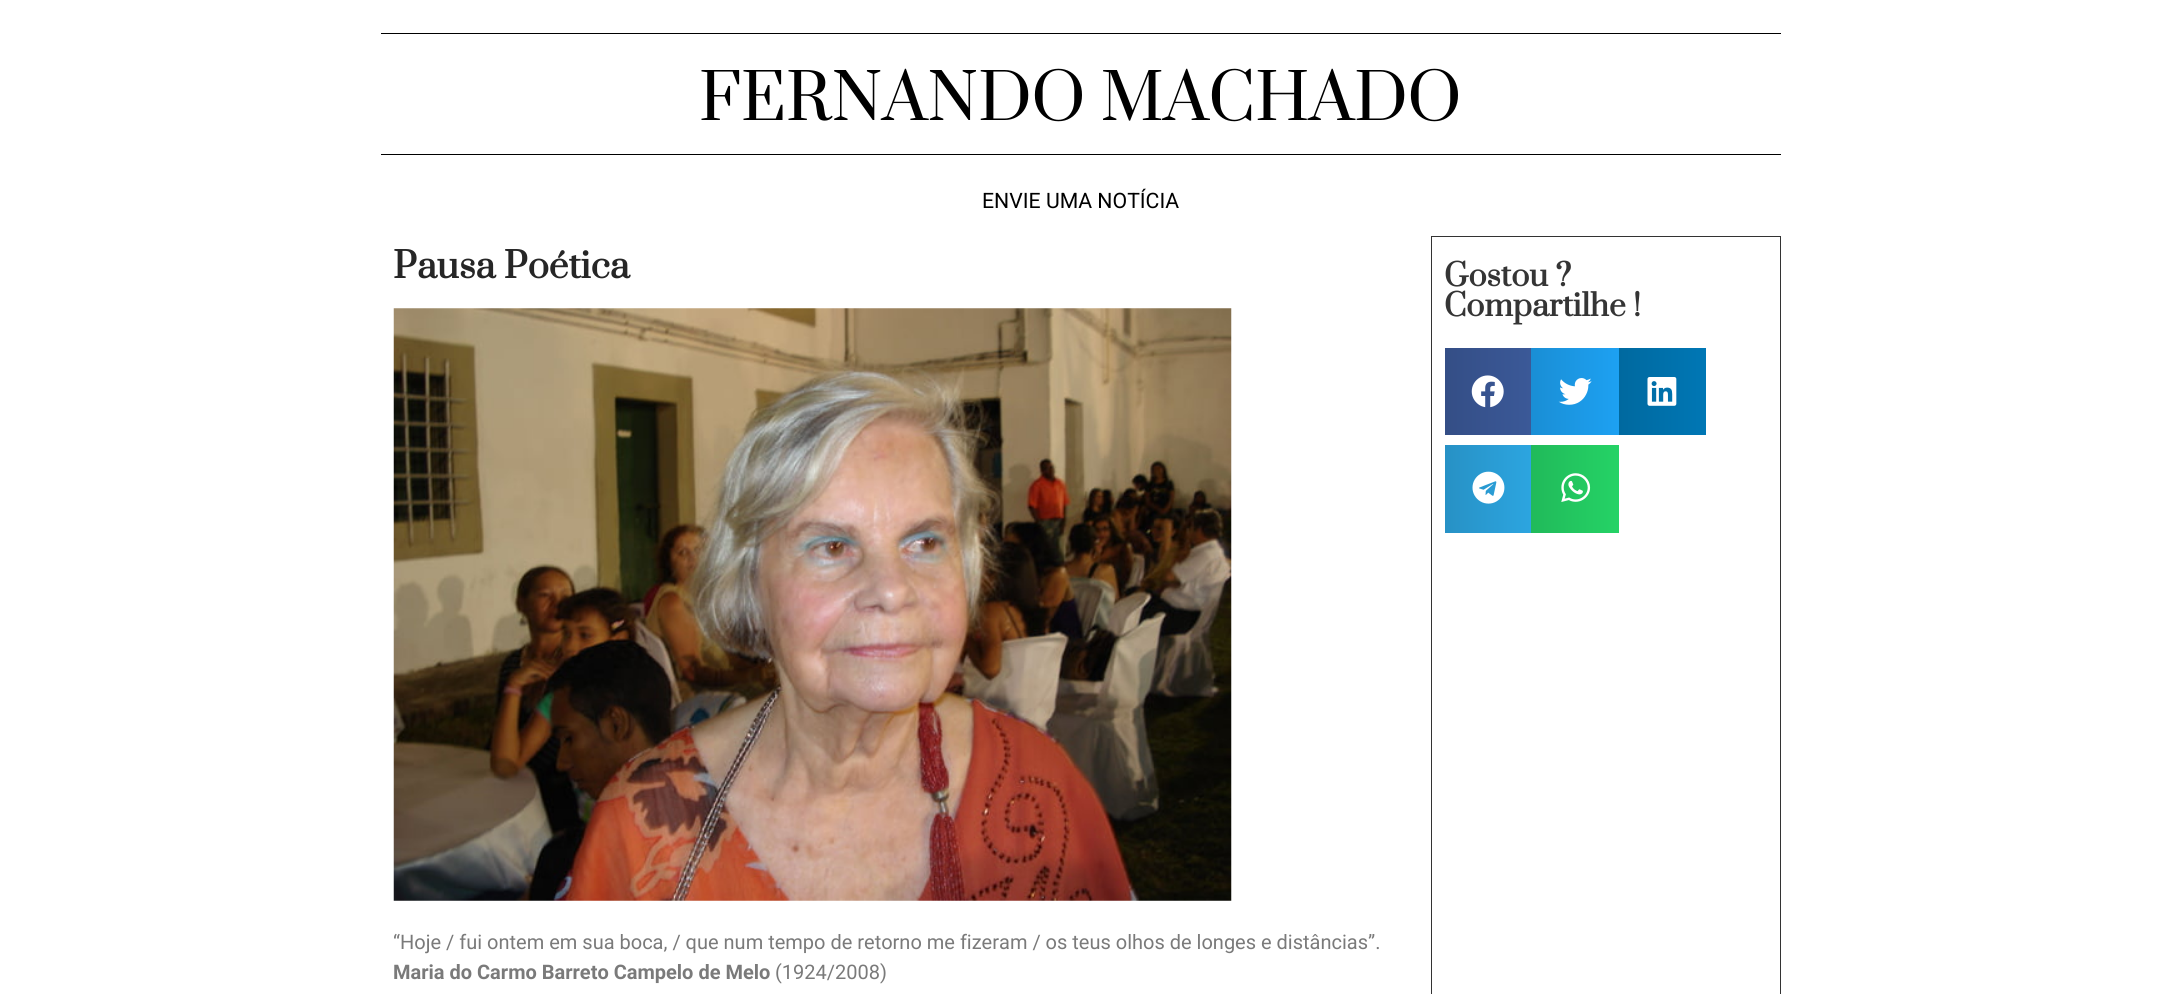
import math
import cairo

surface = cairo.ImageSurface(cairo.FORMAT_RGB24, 2161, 994)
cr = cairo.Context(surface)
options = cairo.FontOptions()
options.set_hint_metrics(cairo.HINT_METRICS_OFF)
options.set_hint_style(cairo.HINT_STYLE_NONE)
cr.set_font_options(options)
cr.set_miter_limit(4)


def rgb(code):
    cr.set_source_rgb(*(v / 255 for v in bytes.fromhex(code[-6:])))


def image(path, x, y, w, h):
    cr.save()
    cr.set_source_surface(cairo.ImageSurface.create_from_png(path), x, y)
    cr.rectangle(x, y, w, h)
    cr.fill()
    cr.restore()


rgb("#ffffff")
cr.paint()
rgb("#000000")
cr.rectangle(381, 33, 1400, 1)
cr.fill()
cr.rectangle(381, 154, 1400, 1)
cr.fill()
image("img/1.png", 393, 308, 839, 593)
cr.rectangle(1431.5, 236.5, 349, 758)
rgb("#333333")
cr.set_line_width(1)
cr.stroke()
gradient = cairo.LinearGradient(1445, 391, 1531, 391)
gradient.add_color_stop_rgba(0, 0.204, 0.306, 0.525, 1)
gradient.add_color_stop_rgba(1, 0.231, 0.349, 0.596, 1)
cr.set_source(gradient)
cr.rectangle(1445, 348, 86, 87)
cr.fill()
image("img/2.png", 1471, 375, 33, 33)
gradient = cairo.LinearGradient(1531, 391, 1619, 391)
gradient.add_color_stop_rgba(0, 0.102, 0.557, 0.835, 1)
gradient.add_color_stop_rgba(1, 0.114, 0.631, 0.949, 1)
cr.set_source(gradient)
cr.rectangle(1531, 348, 88, 87)
cr.fill()
image("img/3.png", 1558, 378, 34, 27)
gradient = cairo.LinearGradient(1619, 391, 1706, 391)
gradient.add_color_stop_rgba(0, 0, 0.412, 0.624, 1)
gradient.add_color_stop_rgba(1, 0, 0.467, 0.71, 1)
cr.set_source(gradient)
cr.rectangle(1619, 348, 87, 87)
cr.fill()
image("img/4.png", 1647, 377, 30, 29)
gradient = cairo.LinearGradient(1445, 489, 1531, 489)
gradient.add_color_stop_rgba(0, 0.153, 0.569, 0.773, 1)
gradient.add_color_stop_rgba(1, 0.173, 0.647, 0.878, 1)
cr.set_source(gradient)
cr.rectangle(1445, 445, 86, 88)
cr.fill()
image("img/5.png", 1472, 471, 33, 33)
gradient = cairo.LinearGradient(1531, 489, 1619, 489)
gradient.add_color_stop_rgba(0, 0.129, 0.729, 0.353, 1)
gradient.add_color_stop_rgba(1, 0.145, 0.827, 0.4, 1)
cr.set_source(gradient)
cr.rectangle(1531, 445, 88, 88)
cr.fill()
image("img/6.png", 1561, 473, 30, 29)
cr.select_font_face("Prata")
cr.set_font_size(62.5)
rgb("#000000")
cr.move_to(699, 120)
cr.show_text("FERNANDO MACHADO")
cr.select_font_face("Roboto")
cr.set_font_size(21.25)
cr.move_to(982, 208)
cr.show_text("ENVIE UMA NOTÍCIA")
cr.select_font_face("Prata", cairo.FONT_SLANT_NORMAL, cairo.FONT_WEIGHT_BOLD)
cr.set_font_size(35)
rgb("#262626")
cr.move_to(393, 278)
cr.show_text("Pausa Poética")
cr.select_font_face("Roboto")
cr.set_font_size(20)
rgb("#7a7a7a")
cr.move_to(393, 949)
cr.show_text("“Hoje / fui ontem em sua boca, / que num tempo de retorno me fizeram / os teus olhos de longes e distâncias”.")
cr.select_font_face("Roboto", cairo.FONT_SLANT_NORMAL, cairo.FONT_WEIGHT_BOLD)
cr.move_to(393, 979)
cr.show_text("Maria do Carmo Barreto Campelo de Melo")
cr.select_font_face("Roboto")
cr.move_to(775, 979)
cr.show_text("(1924/2008)")
cr.select_font_face("Prata", cairo.FONT_SLANT_NORMAL, cairo.FONT_WEIGHT_BOLD)
cr.set_font_size(30)
rgb("#353535")
cr.move_to(1444, 286)
cr.show_text("Gostou ?")
cr.move_to(1444, 316)
cr.show_text("Compartilhe !")
surface.write_to_png("page.png")
